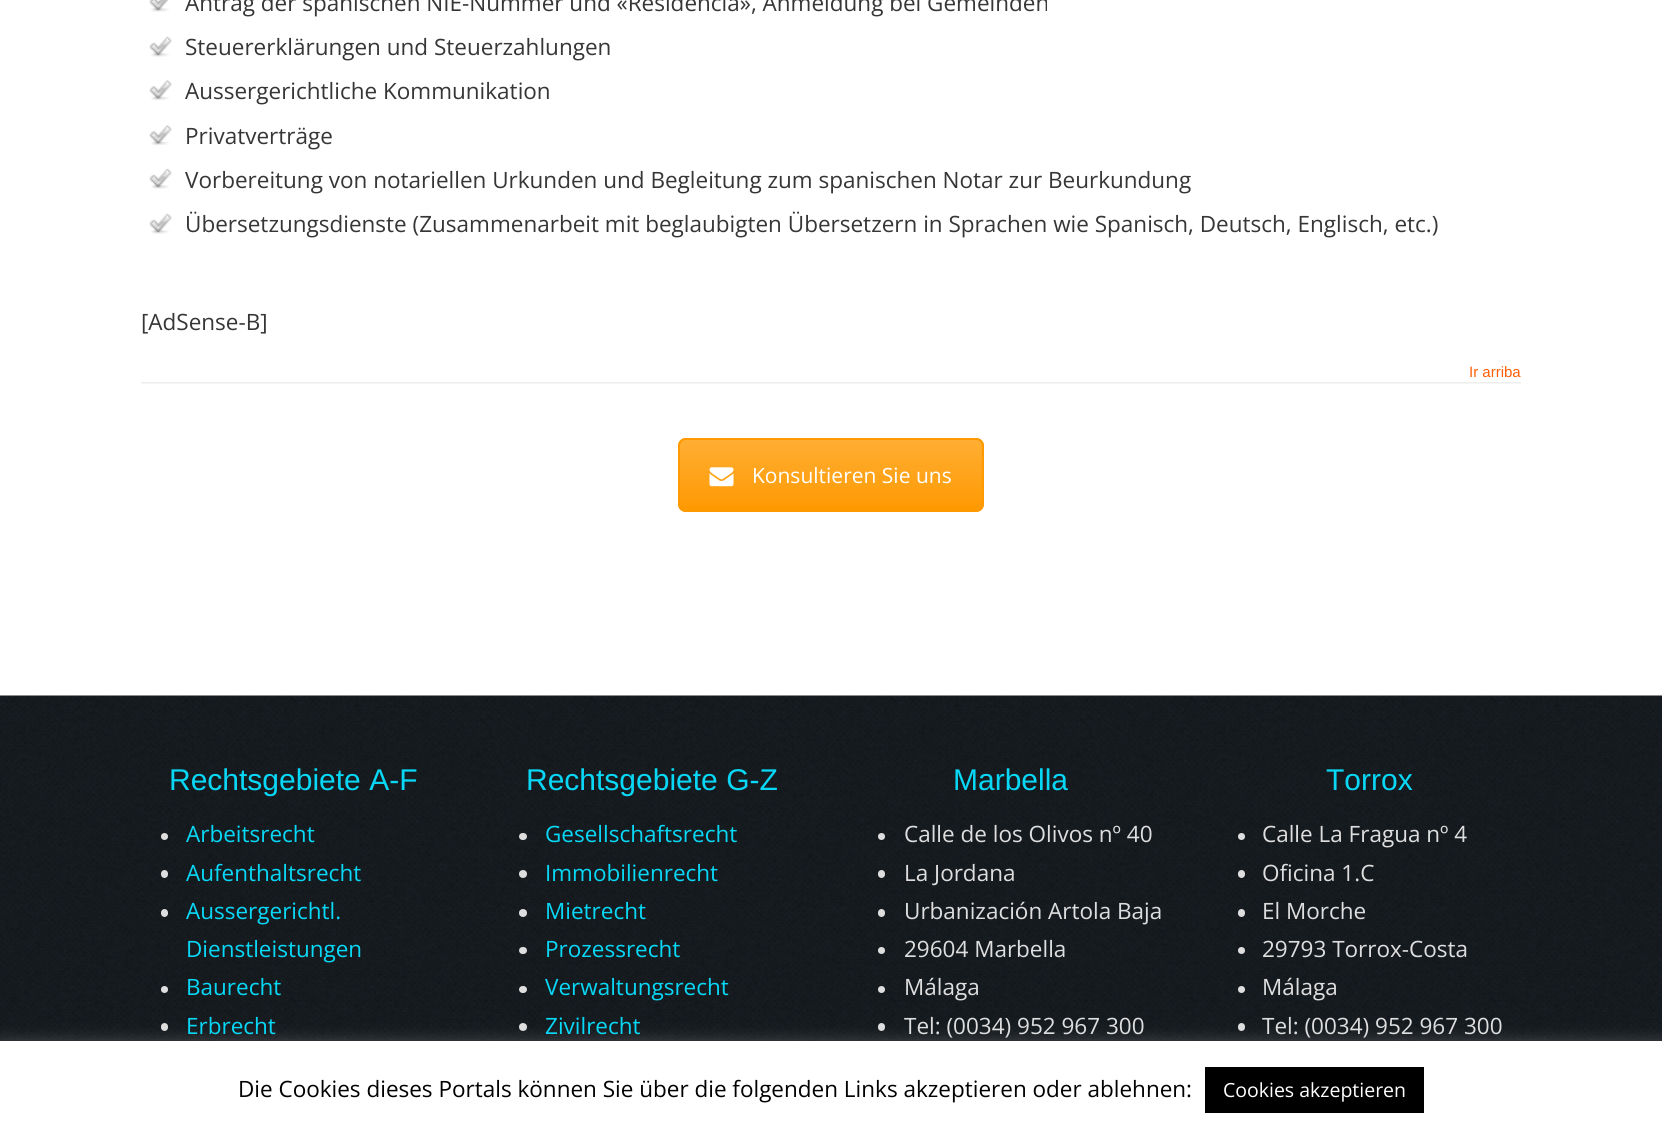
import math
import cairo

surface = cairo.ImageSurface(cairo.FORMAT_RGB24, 1662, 1130)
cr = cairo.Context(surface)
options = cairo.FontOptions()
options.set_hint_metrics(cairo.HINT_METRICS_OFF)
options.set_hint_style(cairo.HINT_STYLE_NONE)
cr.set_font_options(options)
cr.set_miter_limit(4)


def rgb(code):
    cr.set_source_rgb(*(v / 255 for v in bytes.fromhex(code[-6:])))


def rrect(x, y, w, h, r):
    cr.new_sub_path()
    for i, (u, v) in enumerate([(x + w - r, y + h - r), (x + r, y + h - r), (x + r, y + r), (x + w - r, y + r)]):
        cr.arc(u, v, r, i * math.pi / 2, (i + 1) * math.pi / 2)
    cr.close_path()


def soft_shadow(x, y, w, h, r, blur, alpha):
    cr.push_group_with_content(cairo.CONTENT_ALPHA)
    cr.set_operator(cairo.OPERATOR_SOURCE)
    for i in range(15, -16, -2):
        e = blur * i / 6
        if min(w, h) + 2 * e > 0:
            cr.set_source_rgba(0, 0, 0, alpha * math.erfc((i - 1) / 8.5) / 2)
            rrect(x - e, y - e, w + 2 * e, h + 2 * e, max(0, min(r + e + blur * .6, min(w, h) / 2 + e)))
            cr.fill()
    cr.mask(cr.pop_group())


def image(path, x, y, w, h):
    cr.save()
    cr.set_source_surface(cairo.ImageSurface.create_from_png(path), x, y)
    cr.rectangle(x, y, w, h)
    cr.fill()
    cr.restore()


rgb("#ffffff")
cr.paint()
image("img/1.png", 149, 0, 20, 12)
image("img/2.png", 149, 36, 23, 21)
image("img/3.png", 149, 80, 23, 20)
image("img/3.png", 149, 125, 23, 20)
image("img/2.png", 149, 168, 23, 21)
image("img/2.png", 149, 213, 23, 21)
image("img/4.png", 141, 382, 1380, 2)
rgb("#ff9900")
rrect(678, 438, 306, 74, 8)
cr.fill()
cr.save()
rrect(678, 438, 306, 74, 8)
cr.clip()
gradient = cairo.LinearGradient(831, 440, 831, 510)
gradient.add_color_stop_rgba(0, 1, 1, 1, 0.2)
gradient.add_color_stop_rgba(1, 1, 1, 1, 0.01)
cr.set_source(gradient)
cr.rectangle(678, 440, 306, 66)
cr.fill()
cr.restore()
rrect(679, 439, 304, 72, 7)
cr.stroke()
image("img/5.png", 709, 467, 25, 20)
image("img/6.png", 0, 695, 1662, 346)
rgb("#dedede")
cr.arc(164.5, 836.5, 3.5, 0, 2 * math.pi)
cr.fill()
rrect(161, 870, 7, 8, 3.5)
cr.fill()
rrect(161, 909, 7, 8, 3.5)
cr.fill()
cr.arc(164.5, 989.5, 3.5, 0, 2 * math.pi)
cr.fill()
rrect(161, 1023, 7, 8, 3.5)
cr.fill()
rrect(519, 833, 8, 7, 3.5)
cr.fill()
cr.arc(523, 874, 4, 0, 2 * math.pi)
cr.fill()
cr.arc(523, 913, 4, 0, 2 * math.pi)
cr.fill()
rrect(519, 947, 8, 7, 3.5)
cr.fill()
rrect(519, 986, 8, 7, 3.5)
cr.fill()
cr.arc(523, 1027, 4, 0, 2 * math.pi)
cr.fill()
cr.arc(881.5, 836.5, 3.5, 0, 2 * math.pi)
cr.fill()
rrect(878, 870, 7, 8, 3.5)
cr.fill()
rrect(878, 909, 7, 8, 3.5)
cr.fill()
cr.arc(881.5, 950.5, 3.5, 0, 2 * math.pi)
cr.fill()
cr.arc(881.5, 989.5, 3.5, 0, 2 * math.pi)
cr.fill()
rrect(878, 1023, 7, 8, 3.5)
cr.fill()
cr.arc(1241.5, 836.5, 3.5, 0, 2 * math.pi)
cr.fill()
rrect(1238, 870, 7, 8, 3.5)
cr.fill()
rrect(1238, 909, 7, 8, 3.5)
cr.fill()
cr.arc(1241.5, 950.5, 3.5, 0, 2 * math.pi)
cr.fill()
cr.arc(1241.5, 989.5, 3.5, 0, 2 * math.pi)
cr.fill()
rrect(1238, 1023, 7, 8, 3.5)
cr.fill()
rgb("#acabab")
soft_shadow(0, 1040, 1662, 90, 0, 7.5, 0.3)
rgb("#ffffff")
cr.rectangle(0, 1041, 1662, 89)
cr.fill()
rgb("#000000")
cr.rectangle(1205, 1067, 219, 46)
cr.fill()
cr.select_font_face("Open Sans")
cr.set_font_size(22.5)
rgb("#363636")
for x, y, s in [
    (185, 11, "Antrag der spanischen NIE-Nummer und «Residencia», Anmeldung bei Gemeinden"),
    (185, 55, "Steuererklärungen und Steuerzahlungen"),
    (185, 99, "Aussergerichtliche Kommunikation"),
    (185, 144, "Privatverträge"),
    (185, 188, "Vorbereitung von notariellen Urkunden und Begleitung zum spanischen Notar zur Beurkundung"),
    (185, 232, "Übersetzungsdienste (Zusammenarbeit mit beglaubigten Übersetzern in Sprachen wie Spanisch, Deutsch, Englisch, etc.)"),
    (141, 330, "[AdSense-B]"),
]:
    cr.move_to(x, y)
    cr.show_text(s)
cr.select_font_face("Liberation Sans")
cr.set_font_size(15)
rgb("#fe5e08")
cr.move_to(1469, 377)
cr.show_text("Ir arriba")
cr.select_font_face("Open Sans")
cr.set_font_size(21)
rgb("#ffffff")
cr.move_to(752, 483)
cr.show_text("Konsultieren Sie uns")
cr.select_font_face("Liberation Sans")
cr.set_font_size(30)
rgb("#08d8f6")
cr.move_to(169, 790)
cr.show_text("Rechtsgebiete A-F")
cr.select_font_face("Open Sans")
cr.set_font_size(22.5)
for x, y, s in [
    (186, 842, "Arbeitsrecht"),
    (186, 881, "Aufenthaltsrecht"),
    (186, 919, "Aussergerichtl."),
    (186, 957, "Dienstleistungen"),
    (186, 995, "Baurecht"),
    (186, 1034, "Erbrecht"),
]:
    cr.move_to(x, y)
    cr.show_text(s)
cr.select_font_face("Liberation Sans")
cr.set_font_size(30)
cr.move_to(526, 790)
cr.show_text("Rechtsgebiete G-Z")
cr.select_font_face("Open Sans")
cr.set_font_size(22.5)
for x, y, s in [
    (545, 842, "Gesellschaftsrecht"),
    (545, 881, "Immobilienrecht"),
    (545, 919, "Mietrecht"),
    (545, 957, "Prozessrecht"),
    (545, 995, "Verwaltungsrecht"),
    (545, 1034, "Zivilrecht"),
]:
    cr.move_to(x, y)
    cr.show_text(s)
cr.select_font_face("Liberation Sans")
cr.set_font_size(30)
cr.move_to(953, 790)
cr.show_text("Marbella")
cr.select_font_face("Open Sans")
cr.set_font_size(22.5)
rgb("#dedede")
for x, y, s in [
    (904, 842, "Calle de los Olivos nº 40"),
    (904, 881, "La Jordana"),
    (904, 919, "Urbanización Artola Baja"),
    (904, 957, "29604 Marbella"),
    (904, 995, "Málaga"),
    (904, 1034, "Tel: (0034) 952 967 300"),
]:
    cr.move_to(x, y)
    cr.show_text(s)
cr.select_font_face("Liberation Sans")
cr.set_font_size(30)
rgb("#08d8f6")
cr.move_to(1326, 790)
cr.show_text("Torrox")
cr.select_font_face("Open Sans")
cr.set_font_size(22.5)
rgb("#dedede")
for x, y, s in [
    (1262, 842, "Calle La Fragua nº 4"),
    (1262, 881, "Oficina 1.C"),
    (1262, 919, "El Morche"),
    (1262, 957, "29793 Torrox-Costa"),
    (1262, 995, "Málaga"),
    (1262, 1034, "Tel: (0034) 952 967 300"),
]:
    cr.move_to(x, y)
    cr.show_text(s)
rgb("#000000")
cr.move_to(238, 1097)
cr.show_text("Die Cookies dieses Portals können Sie über die folgenden Links akzeptieren oder ablehnen:")
cr.set_font_size(19.5)
rgb("#ffffff")
cr.move_to(1223, 1097)
cr.show_text("Cookies akzeptieren")
surface.write_to_png("page.png")
